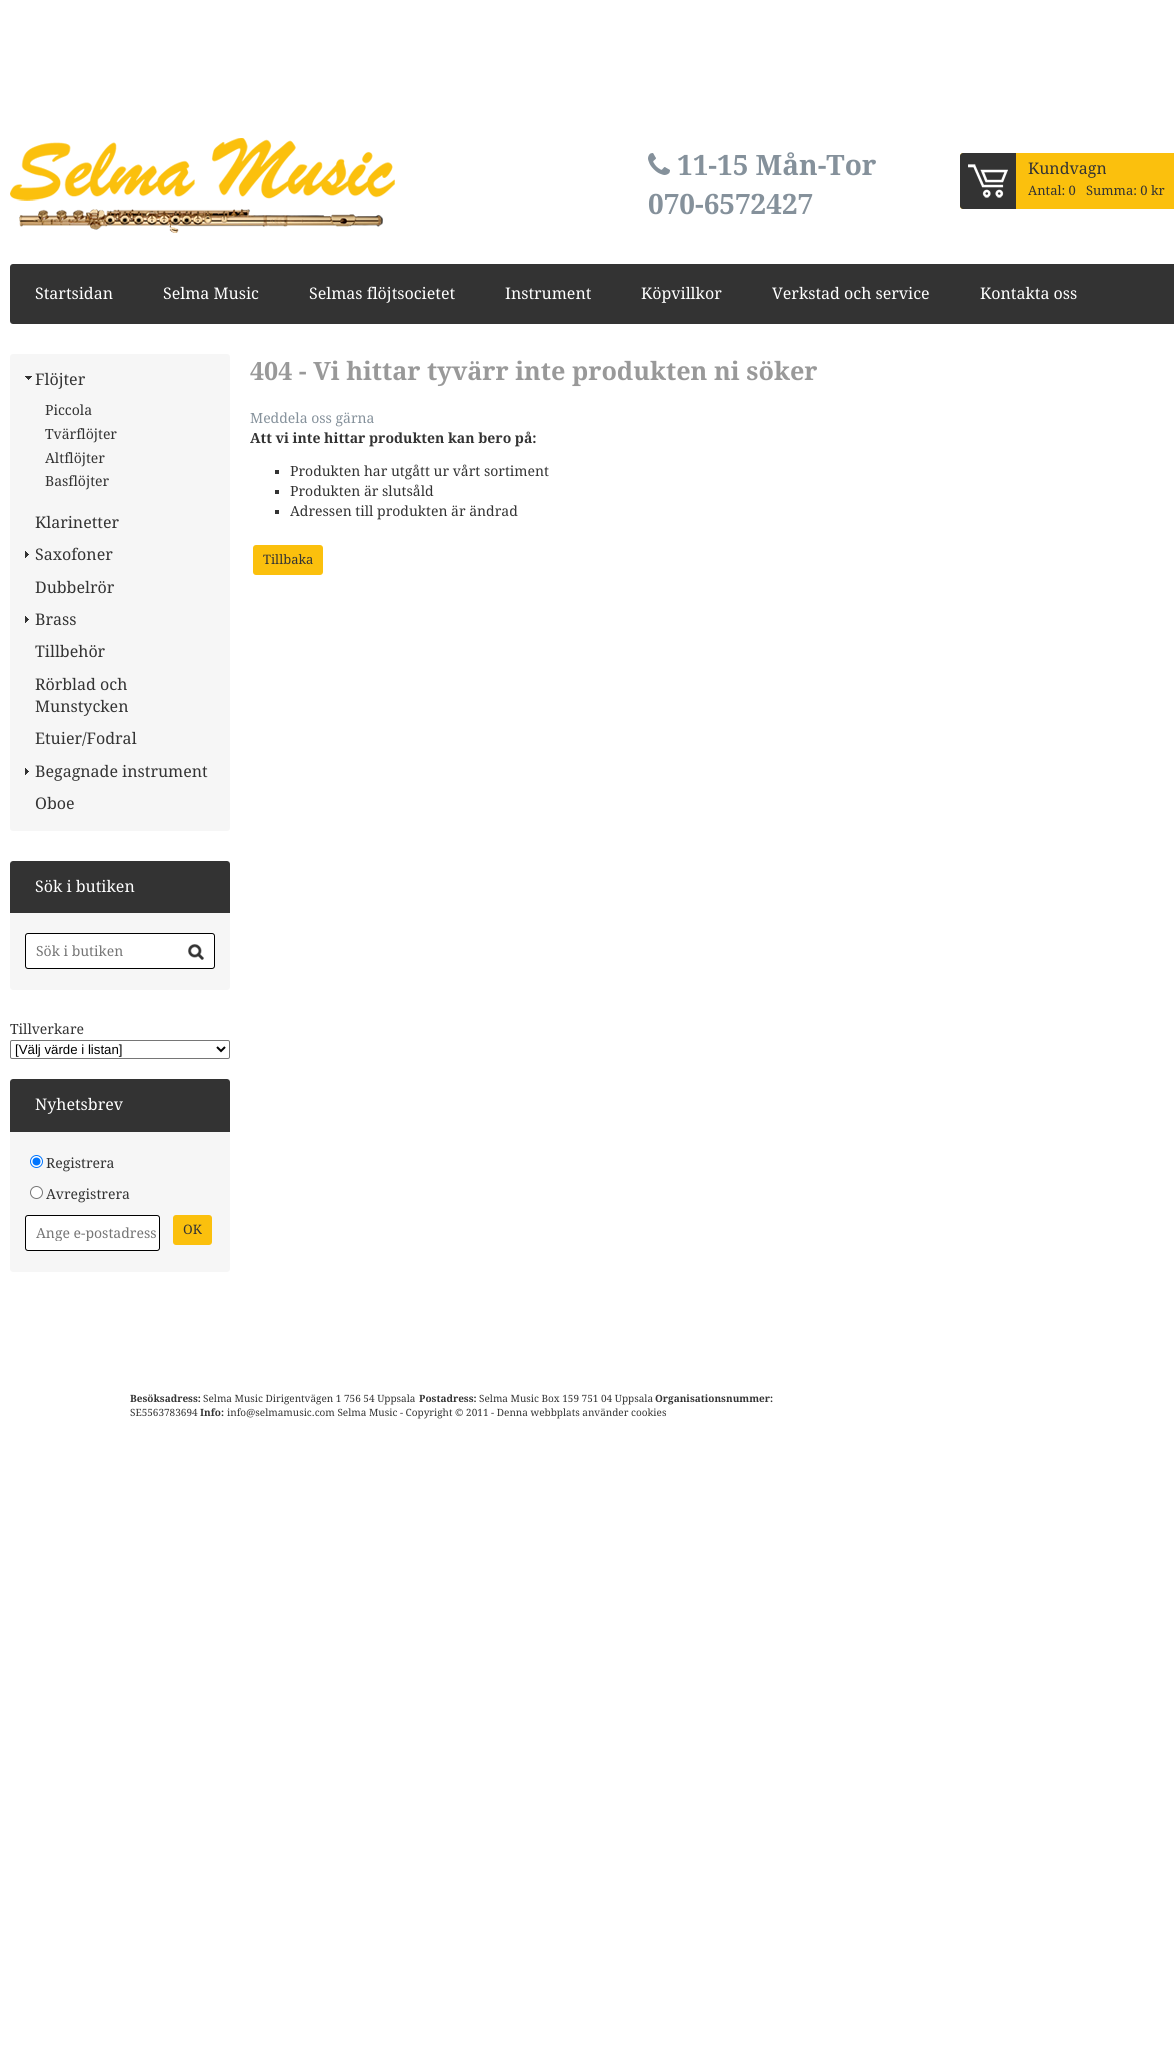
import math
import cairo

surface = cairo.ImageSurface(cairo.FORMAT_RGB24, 1174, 2071)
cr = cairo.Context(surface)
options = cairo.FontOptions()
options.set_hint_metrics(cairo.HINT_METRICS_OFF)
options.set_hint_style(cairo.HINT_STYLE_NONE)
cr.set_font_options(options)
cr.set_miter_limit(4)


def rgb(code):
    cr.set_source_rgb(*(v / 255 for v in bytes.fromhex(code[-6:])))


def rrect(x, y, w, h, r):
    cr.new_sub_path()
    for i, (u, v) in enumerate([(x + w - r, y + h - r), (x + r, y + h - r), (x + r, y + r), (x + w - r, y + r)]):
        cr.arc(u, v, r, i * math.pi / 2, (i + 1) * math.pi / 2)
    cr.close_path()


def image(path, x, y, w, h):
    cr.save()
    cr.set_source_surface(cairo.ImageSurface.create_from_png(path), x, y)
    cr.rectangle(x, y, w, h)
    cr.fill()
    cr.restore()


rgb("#ffffff")
cr.paint()
image("img/1.png", 648, 153, 22, 22)
image("img/2.png", 10, 138, 385, 95)
rgb("#fbc00d")
rrect(960, 153, 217, 56, 3)
cr.fill()
rgb("#333333")
cr.new_path()
cr.move_to(963, 153)
cr.line_to(1016, 153)
cr.line_to(1016, 209)
cr.line_to(963, 209)
cr.curve_to(961.5, 209, 960, 207.5, 960, 206)
cr.line_to(960, 156)
cr.curve_to(960, 154.5, 961.5, 153, 963, 153)
cr.close_path()
cr.fill()
image("img/3.png", 968, 164, 40, 34)
rrect(10, 264, 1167, 60, 3)
cr.fill()
rgb("#f6f6f6")
rrect(10, 354, 220, 477, 3)
cr.fill()
image("img/4.png", 25, 376, 7, 4)
image("img/5.png", 25, 551, 4, 7)
image("img/5.png", 25, 616, 4, 7)
image("img/5.png", 25, 768, 4, 7)
cr.new_path()
cr.move_to(10, 861)
cr.line_to(230, 861)
cr.line_to(230, 987)
cr.curve_to(230, 988.5, 228.5, 990, 227, 990)
cr.line_to(13, 990)
cr.curve_to(11.5, 990, 10, 988.5, 10, 987)
cr.close_path()
cr.fill()
rgb("#333333")
cr.new_path()
cr.move_to(13, 861)
cr.line_to(227, 861)
cr.curve_to(228.5, 861, 230, 862.5, 230, 864)
cr.line_to(230, 913)
cr.line_to(10, 913)
cr.line_to(10, 864)
cr.curve_to(10, 862.5, 11.5, 861, 13, 861)
cr.close_path()
cr.fill()
rgb("#ffffff")
rrect(25.5, 933.5, 189, 35, 2.5)
cr.fill_preserve()
rgb("#000000")
cr.set_line_width(1)
cr.stroke()
image("img/6.png", 188, 944, 16, 16)
rrect(10.5, 1040.5, 219, 18, 1.5)
rgb("#767676")
cr.stroke()
cr.new_path()
cr.move_to(217, 1047)
cr.line_to(221, 1051)
cr.line_to(225, 1047)
rgb("#000000")
cr.set_line_width(2)
cr.stroke()
rgb("#f6f6f6")
cr.new_path()
cr.move_to(10, 1079)
cr.line_to(230, 1079)
cr.line_to(230, 1269)
cr.curve_to(230, 1270.5, 228.5, 1272, 227, 1272)
cr.line_to(13, 1272)
cr.curve_to(11.5, 1272, 10, 1270.5, 10, 1269)
cr.close_path()
cr.fill()
rgb("#333333")
cr.new_path()
cr.move_to(13, 1079)
cr.line_to(227, 1079)
cr.curve_to(228.5, 1079, 230, 1080.5, 230, 1082)
cr.line_to(230, 1132)
cr.line_to(10, 1132)
cr.line_to(10, 1082)
cr.curve_to(10, 1080.5, 11.5, 1079, 13, 1079)
cr.close_path()
cr.fill()
rgb("#ffffff")
cr.arc(36.5, 1161.5, 6, 0, 2 * math.pi)
cr.fill_preserve()
rgb("#0075ff")
cr.set_line_width(1)
cr.stroke()
cr.arc(36.5, 1161.5, 4, 0, 2 * math.pi)
cr.fill()
rgb("#ffffff")
cr.arc(36.5, 1192.5, 6, 0, 2 * math.pi)
cr.fill_preserve()
rgb("#767676")
cr.stroke()
rgb("#ffffff")
rrect(25.5, 1215.5, 134, 35, 2.5)
cr.fill_preserve()
rgb("#000000")
cr.stroke()
rgb("#fbc00d")
rrect(173, 1215, 39, 30, 3)
cr.fill()
for x, y, w, h, color in [
    (275, 470, 4, 4, "#333333"),
    (275, 490, 4, 4, "#333333"),
    (275, 510, 4, 4, "#333333"),
]:
    rgb(color)
    cr.rectangle(x, y, w, h)
    cr.fill()
rgb("#fbc00d")
rrect(253, 545, 70, 30, 3)
cr.fill()
cr.select_font_face("Droid Serif", cairo.FONT_SLANT_NORMAL, cairo.FONT_WEIGHT_BOLD)
cr.set_font_size(28)
rgb("#85919b")
cr.move_to(677, 175)
cr.show_text("11-15 Mån-Tor")
cr.move_to(648, 214)
cr.show_text("070-6572427")
cr.select_font_face("Droid Serif")
cr.set_font_size(16)
rgb("#333333")
cr.move_to(1028, 174)
cr.show_text("Kundvagn")
cr.set_font_size(13)
cr.move_to(1028, 195)
cr.show_text("Antal: 0")
cr.move_to(1086, 195)
cr.show_text("Summa: 0 kr")
cr.set_font_size(16)
rgb("#ffffff")
for x, y, s in [
    (35, 299, "Startsidan"),
    (163, 299, "Selma Music"),
    (309, 299, "Selmas flöjtsocietet"),
    (505, 299, "Instrument"),
    (641, 299, "Köpvillkor"),
    (772, 299, "Verkstad och service"),
    (980, 299, "Kontakta oss"),
]:
    cr.move_to(x, y)
    cr.show_text(s)
rgb("#333333")
cr.move_to(35, 385)
cr.show_text("Flöjter")
cr.set_font_size(14)
for x, y, s in [
    (45, 415, "Piccola"),
    (45, 439, "Tvärflöjter"),
    (45, 463, "Altflöjter"),
    (45, 486, "Basflöjter"),
]:
    cr.move_to(x, y)
    cr.show_text(s)
cr.set_font_size(16)
for x, y, s in [
    (35, 528, "Klarinetter"),
    (35, 560, "Saxofoner"),
    (35, 593, "Dubbelrör"),
    (35, 625, "Brass"),
    (35, 657, "Tillbehör"),
    (35, 690, "Rörblad och"),
    (35, 712, "Munstycken"),
    (35, 744, "Etuier/Fodral"),
    (35, 777, "Begagnade instrument"),
    (35, 809, "Oboe"),
]:
    cr.move_to(x, y)
    cr.show_text(s)
rgb("#ffffff")
cr.move_to(35, 892)
cr.show_text("Sök i butiken")
cr.set_font_size(14)
rgb("#757575")
cr.move_to(36, 956)
cr.show_text("Sök i butiken")
rgb("#333333")
cr.move_to(10, 1034)
cr.show_text("Tillverkare")
cr.select_font_face("Liberation Sans")
cr.set_font_size(13.25)
rgb("#000000")
cr.move_to(15, 1054)
cr.show_text("[Välj värde i listan]")
cr.select_font_face("Droid Serif")
cr.set_font_size(16)
rgb("#ffffff")
cr.move_to(35, 1110)
cr.show_text("Nyhetsbrev")
cr.set_font_size(14)
rgb("#333333")
cr.move_to(46, 1168)
cr.show_text("Registrera")
cr.move_to(46, 1199)
cr.show_text("Avregistrera")
cr.save()
cr.rectangle(36, 1225, 145, 16)
cr.clip()
rgb("#757575")
cr.move_to(36, 1238)
cr.show_text("Ange e-postadress")
cr.restore()
cr.set_font_size(13)
cr.move_to(183, 1234)
cr.show_text("OK")
cr.select_font_face("Droid Serif", cairo.FONT_SLANT_NORMAL, cairo.FONT_WEIGHT_BOLD)
cr.set_font_size(25.2)
rgb("#999999")
cr.move_to(250, 380)
cr.show_text("404 - Vi hittar tyvärr inte produkten ni söker")
cr.select_font_face("Droid Serif")
cr.set_font_size(14)
rgb("#85919b")
cr.move_to(250, 423)
cr.show_text("Meddela oss gärna")
cr.select_font_face("Droid Serif", cairo.FONT_SLANT_NORMAL, cairo.FONT_WEIGHT_BOLD)
rgb("#333333")
cr.move_to(250, 443)
cr.show_text("Att vi inte hittar produkten kan bero på:")
cr.select_font_face("Droid Serif")
for x, y, s in [
    (290, 476, "Produkten har utgått ur vårt sortiment"),
    (290, 496, "Produkten är slutsåld"),
    (290, 516, "Adressen till produkten är ändrad"),
]:
    cr.move_to(x, y)
    cr.show_text(s)
cr.set_font_size(13)
cr.move_to(263, 564)
cr.show_text("Tillbaka")
cr.select_font_face("Droid Serif", cairo.FONT_SLANT_NORMAL, cairo.FONT_WEIGHT_BOLD)
cr.set_font_size(10)
cr.move_to(130, 1402)
cr.show_text("Besöksadress:")
cr.select_font_face("Droid Serif")
cr.move_to(203, 1402)
cr.show_text("Selma Music Dirigentvägen 1 756 54 Uppsala")
cr.select_font_face("Droid Serif", cairo.FONT_SLANT_NORMAL, cairo.FONT_WEIGHT_BOLD)
cr.move_to(419, 1402)
cr.show_text("Postadress:")
cr.select_font_face("Droid Serif")
cr.move_to(479, 1402)
cr.show_text("Selma Music Box 159 751 04 Uppsala")
cr.select_font_face("Droid Serif", cairo.FONT_SLANT_NORMAL, cairo.FONT_WEIGHT_BOLD)
cr.move_to(655, 1402)
cr.show_text("Organisationsnummer:")
cr.select_font_face("Droid Serif")
cr.move_to(130, 1416)
cr.show_text("SE5563783694")
cr.select_font_face("Droid Serif", cairo.FONT_SLANT_NORMAL, cairo.FONT_WEIGHT_BOLD)
cr.move_to(200, 1416)
cr.show_text("Info:")
cr.select_font_face("Droid Serif")
cr.move_to(227, 1416)
cr.show_text("info@selmamusic.com Selma Music - Copyright © 2011 - Denna webbplats använder cookies")
surface.write_to_png("page.png")
